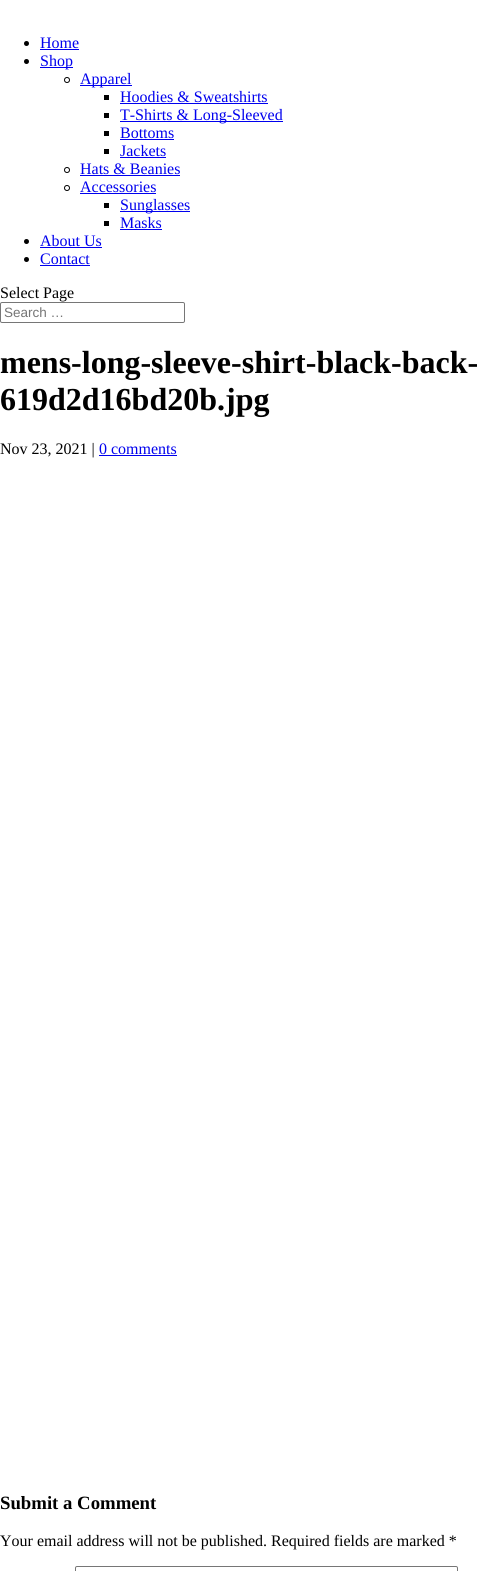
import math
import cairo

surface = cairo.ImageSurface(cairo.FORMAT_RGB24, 480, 1571)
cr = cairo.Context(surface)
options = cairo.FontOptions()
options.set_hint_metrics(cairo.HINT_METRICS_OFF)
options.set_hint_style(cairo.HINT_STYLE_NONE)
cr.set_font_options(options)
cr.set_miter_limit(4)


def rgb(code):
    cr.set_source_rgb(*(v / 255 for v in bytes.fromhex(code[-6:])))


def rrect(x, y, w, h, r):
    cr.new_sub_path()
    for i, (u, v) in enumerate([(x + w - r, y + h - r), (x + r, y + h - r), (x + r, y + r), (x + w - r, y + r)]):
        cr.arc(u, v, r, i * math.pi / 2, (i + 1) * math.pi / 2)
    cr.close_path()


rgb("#ffffff")
cr.paint()
rgb("#000000")
cr.arc(26.5, 43.5, 2.5, 0, 2 * math.pi)
cr.fill()
rgb("#0000ee")
cr.rectangle(40, 49, 39, 1)
cr.fill()
rgb("#000000")
cr.arc(26.5, 61.5, 2.5, 0, 2 * math.pi)
cr.fill()
rgb("#0000ee")
cr.rectangle(40, 67, 33, 1)
cr.fill()
cr.arc(67, 80, 2.5, 0, 2 * math.pi)
rgb("#000000")
cr.set_line_width(1)
cr.stroke()
for x, y, w, h, color in [
    (80, 85, 52, 1, "#0000ee"),
    (104, 95, 5, 5, "#000000"),
    (120, 103, 148, 1, "#0000ee"),
    (104, 113, 5, 5, "#000000"),
    (120, 121, 163, 1, "#0000ee"),
    (104, 131, 5, 5, "#000000"),
    (120, 139, 54, 1, "#0000ee"),
    (104, 149, 5, 5, "#000000"),
    (120, 157, 46, 1, "#0000ee"),
]:
    rgb(color)
    cr.rectangle(x, y, w, h)
    cr.fill()
cr.arc(67, 170, 2.5, 0, 2 * math.pi)
rgb("#000000")
cr.stroke()
rgb("#0000ee")
cr.rectangle(80, 175, 100, 1)
cr.fill()
cr.arc(67, 188, 2.5, 0, 2 * math.pi)
rgb("#000000")
cr.stroke()
for x, y, w, h, color in [
    (80, 193, 76, 1, "#0000ee"),
    (104, 203, 5, 5, "#000000"),
    (120, 211, 70, 1, "#0000ee"),
    (104, 221, 5, 5, "#000000"),
    (120, 229, 42, 1, "#0000ee"),
]:
    rgb(color)
    cr.rectangle(x, y, w, h)
    cr.fill()
rgb("#000000")
cr.arc(26.5, 241.5, 2.5, 0, 2 * math.pi)
cr.fill()
rgb("#0000ee")
cr.rectangle(40, 247, 62, 1)
cr.fill()
rgb("#000000")
cr.arc(26.5, 259.5, 2.5, 0, 2 * math.pi)
cr.fill()
rgb("#0000ee")
cr.rectangle(40, 265, 50, 1)
cr.fill()
rrect(0.5, 302.5, 184, 20, 1.5)
rgb("#767676")
cr.stroke()
rgb("#0000ee")
cr.rectangle(99, 455, 78, 1)
cr.fill()
rrect(75.5, 1566.5, 382, 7, 1.5)
rgb("#767676")
cr.stroke()
cr.select_font_face("Liberation Serif")
cr.set_font_size(16)
rgb("#0000ee")
for x, y, s in [
    (40, 48, "Home"),
    (40, 66, "Shop"),
    (80, 84, "Apparel"),
    (120, 102, "Hoodies & Sweatshirts"),
    (120, 120, "T-Shirts & Long-Sleeved"),
    (120, 138, "Bottoms"),
    (120, 156, "Jackets"),
    (80, 174, "Hats & Beanies"),
    (80, 192, "Accessories"),
    (120, 210, "Sunglasses"),
    (120, 228, "Masks"),
    (40, 246, "About Us"),
    (40, 264, "Contact"),
]:
    cr.move_to(x, y)
    cr.show_text(s)
rgb("#000000")
cr.move_to(0, 298)
cr.show_text("Select Page")
cr.select_font_face("Liberation Sans")
cr.set_font_size(13.5)
rgb("#757575")
cr.move_to(4, 317)
cr.show_text("Search …")
cr.select_font_face("Liberation Serif", cairo.FONT_SLANT_NORMAL, cairo.FONT_WEIGHT_BOLD)
cr.set_font_size(32)
rgb("#000000")
cr.move_to(0, 373)
cr.show_text("mens-long-sleeve-shirt-black-back-")
cr.move_to(0, 410)
cr.show_text("619d2d16bd20b.jpg")
cr.select_font_face("Liberation Serif")
cr.set_font_size(16)
cr.move_to(0, 454)
cr.show_text("Nov 23, 2021 |")
rgb("#0000ee")
cr.move_to(99, 454)
cr.show_text("0 comments")
cr.select_font_face("Liberation Serif", cairo.FONT_SLANT_NORMAL, cairo.FONT_WEIGHT_BOLD)
cr.set_font_size(18.75)
rgb("#000000")
cr.move_to(0, 1509)
cr.show_text("Submit a Comment")
cr.select_font_face("Liberation Serif")
cr.set_font_size(16)
cr.move_to(0, 1546)
cr.show_text("Your email address will not be published. Required fields are marked *")
surface.write_to_png("page.png")
